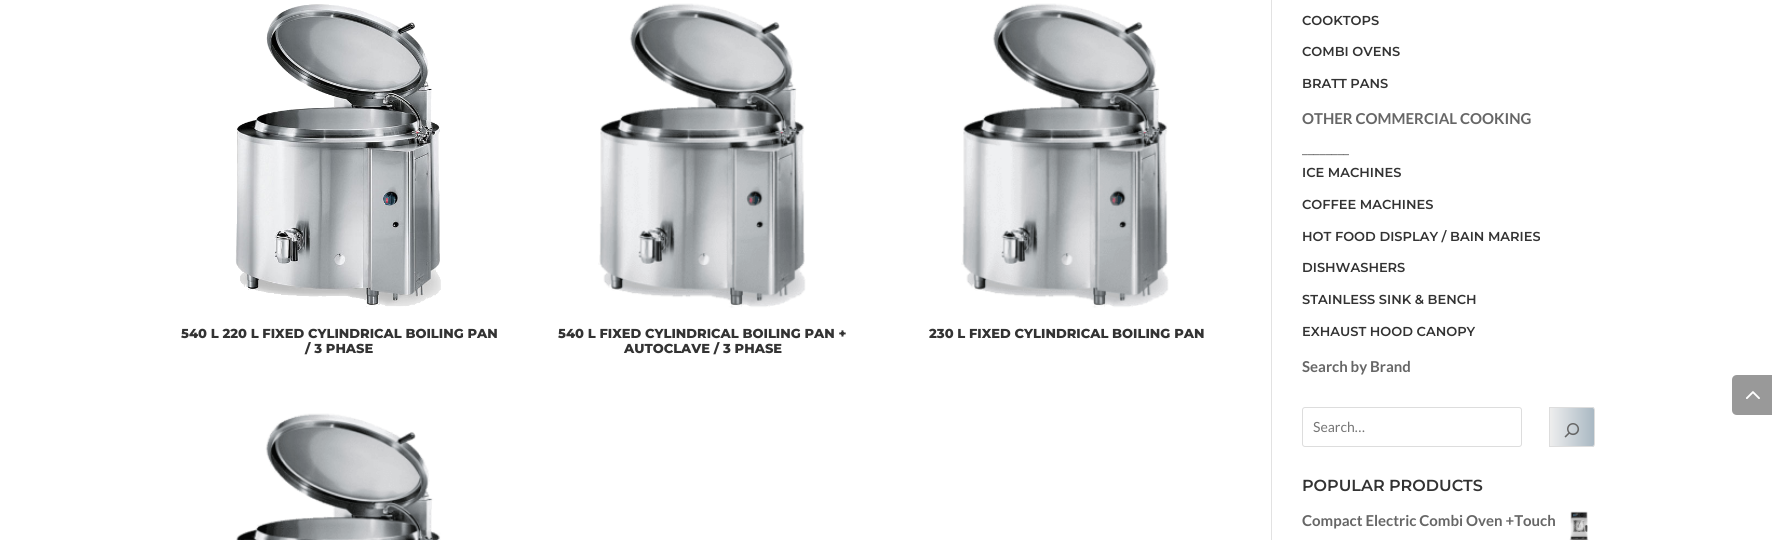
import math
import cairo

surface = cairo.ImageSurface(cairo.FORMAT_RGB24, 1772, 540)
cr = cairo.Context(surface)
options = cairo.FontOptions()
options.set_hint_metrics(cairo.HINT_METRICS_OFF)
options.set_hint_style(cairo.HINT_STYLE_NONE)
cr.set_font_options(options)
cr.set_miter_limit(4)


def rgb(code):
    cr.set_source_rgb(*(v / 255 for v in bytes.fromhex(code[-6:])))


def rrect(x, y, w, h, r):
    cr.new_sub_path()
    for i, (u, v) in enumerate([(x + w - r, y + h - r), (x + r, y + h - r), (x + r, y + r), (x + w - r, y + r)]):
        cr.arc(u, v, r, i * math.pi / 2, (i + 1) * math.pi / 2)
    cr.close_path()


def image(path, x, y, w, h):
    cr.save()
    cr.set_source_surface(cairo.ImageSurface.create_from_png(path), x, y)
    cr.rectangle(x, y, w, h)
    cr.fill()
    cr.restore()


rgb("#ffffff")
cr.paint()
rgb("#e2e2e2")
cr.rectangle(1271, 0, 1, 540)
cr.fill()
image("img/1.png", 235, 4, 206, 303)
image("img/2.png", 598, 3, 208, 305)
image("img/3.png", 961, 3, 208, 305)
image("img/4.png", 236, 413, 205, 127)
rrect(1302.5, 407.5, 219, 39, 2.5)
rgb("#dddddd")
cr.set_line_width(1)
cr.stroke()
cr.save()
cr.new_path()
cr.move_to(1549, 407)
cr.line_to(1592, 407)
cr.curve_to(1593.5, 407, 1595, 408.5, 1595, 410)
cr.line_to(1595, 444)
cr.curve_to(1595, 445.5, 1593.5, 447, 1592, 447)
cr.line_to(1549, 447)
cr.close_path()
cr.clip()
gradient = cairo.LinearGradient(1550, 427, 1594, 427)
gradient.add_color_stop_rgba(0, 0.933, 0.933, 0.933, 1)
gradient.add_color_stop_rgba(1, 0.663, 0.722, 0.765, 1)
cr.set_source(gradient)
cr.rectangle(1550, 407, 44, 40)
cr.fill()
cr.restore()
cr.new_path()
cr.move_to(1549.5, 407.5)
cr.line_to(1592, 407.5)
cr.curve_to(1593.5, 407.5, 1594.5, 408.5, 1594.5, 410)
cr.line_to(1594.5, 444)
cr.curve_to(1594.5, 445.5, 1593.5, 446.5, 1592, 446.5)
cr.line_to(1549.5, 446.5)
cr.close_path()
cr.stroke()
image("img/5.png", 1564, 423, 16, 15)
image("img/6.png", 1569, 511, 20, 29)
rgb("#999999")
cr.new_path()
cr.move_to(1737, 375)
cr.line_to(1772, 375)
cr.line_to(1772, 415)
cr.line_to(1737, 415)
cr.curve_to(1734, 415, 1732, 413, 1732, 410)
cr.line_to(1732, 380)
cr.curve_to(1732, 377, 1734, 375, 1737, 375)
cr.close_path()
cr.fill()
image("img/7.png", 1746, 391, 14, 8)
cr.select_font_face("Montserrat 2 Thin")
cr.set_font_size(13)
rgb("#333333")
for x, y, s in [
    (181, 338, "540 L 220 L FIXED CYLINDRICAL BOILING PAN"),
    (305, 353, "/ 3 PHASE"),
    (558, 338, "540 L FIXED CYLINDRICAL BOILING PAN +"),
    (624, 353, "AUTOCLAVE / 3 PHASE"),
    (929, 338, "230 L FIXED CYLINDRICAL BOILING PAN"),
]:
    cr.move_to(x, y)
    cr.show_text(s)
cr.select_font_face("Montserrat Thin")
for x, y, s in [
    (1302, 25, "COOKTOPS"),
    (1302, 56, "COMBI OVENS"),
    (1302, 88, "BRATT PANS"),
]:
    cr.move_to(x, y)
    cr.show_text(s)
cr.select_font_face("Lato", cairo.FONT_SLANT_NORMAL, cairo.FONT_WEIGHT_BOLD)
cr.set_font_size(15)
rgb("#666666")
cr.move_to(1302, 124)
cr.show_text("OTHER COMMERCIAL COOKING")
cr.select_font_face("Lato")
cr.move_to(1302, 153)
cr.show_text("________")
cr.select_font_face("Montserrat Thin")
cr.set_font_size(13)
rgb("#333333")
for x, y, s in [
    (1302, 177, "ICE MACHINES"),
    (1302, 209, "COFFEE MACHINES"),
    (1302, 241, "HOT FOOD DISPLAY / BAIN MARIES"),
    (1302, 272, "DISHWASHERS"),
    (1302, 304, "STAINLESS SINK & BENCH"),
    (1302, 336, "EXHAUST HOOD CANOPY"),
]:
    cr.move_to(x, y)
    cr.show_text(s)
cr.select_font_face("Lato", cairo.FONT_SLANT_NORMAL, cairo.FONT_WEIGHT_BOLD)
cr.set_font_size(15)
rgb("#666666")
cr.move_to(1302, 372)
cr.show_text("Search by Brand")
cr.select_font_face("Lato")
cr.set_font_size(14)
rgb("#757575")
cr.move_to(1313, 432)
cr.show_text("Search…")
cr.select_font_face("Montserrat Thin")
cr.set_font_size(16)
rgb("#333333")
cr.move_to(1302, 491)
cr.show_text("POPULAR PRODUCTS")
cr.select_font_face("Lato", cairo.FONT_SLANT_NORMAL, cairo.FONT_WEIGHT_BOLD)
cr.set_font_size(15)
rgb("#666666")
cr.move_to(1302, 526)
cr.show_text("Compact Electric Combi Oven +Touch")
surface.write_to_png("page.png")
